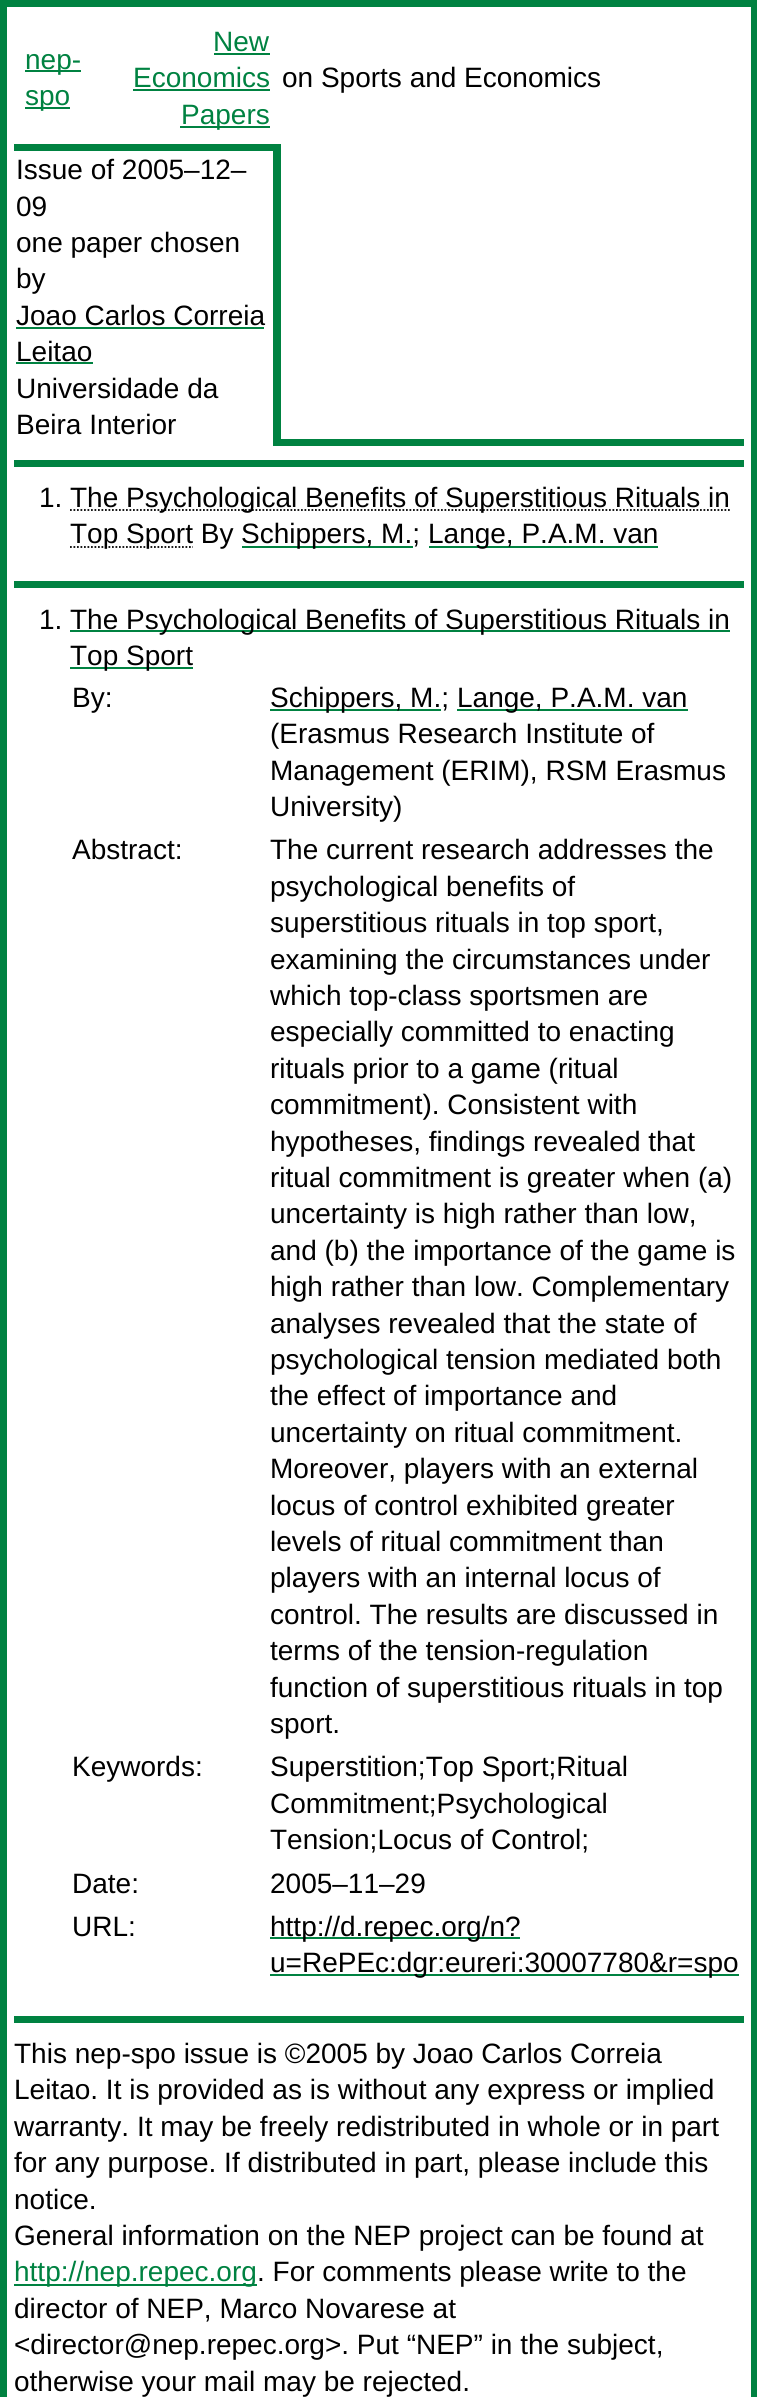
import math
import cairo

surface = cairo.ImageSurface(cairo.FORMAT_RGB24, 757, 2397)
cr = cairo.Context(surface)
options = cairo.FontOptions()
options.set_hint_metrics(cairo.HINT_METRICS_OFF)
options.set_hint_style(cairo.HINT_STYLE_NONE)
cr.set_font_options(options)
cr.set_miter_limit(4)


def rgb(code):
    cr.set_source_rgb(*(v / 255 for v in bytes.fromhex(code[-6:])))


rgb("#ffffff")
cr.paint()
cr.rectangle(3.5, 3.5, 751, 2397)
rgb("#008241")
cr.set_line_width(7)
cr.stroke()
for x, y, w, h, color in [
    (25, 70, 56, 2, "#008241"),
    (25, 107, 45, 2, "#008241"),
    (214, 53, 56, 2, "#008241"),
    (133, 89, 137, 2, "#008241"),
    (180, 126, 90, 2, "#008241"),
    (14, 144, 263, 7, "#008241"),
    (273, 144, 4, 302, "#008241"),
    (16, 327, 248, 2, "#008241"),
    (16, 362, 77, 2, "#008241"),
    (277, 439, 467, 7, "#008241"),
    (277, 144, 4, 302, "#008241"),
    (14, 460, 730, 7, "#008241"),
]:
    rgb(color)
    cr.rectangle(x, y, w, h)
    cr.fill()
cr.new_path()
cr.move_to(70, 510)
cr.line_to(730, 510)
rgb("#000000")
cr.set_line_width(1.8)
cr.set_dash([1.75, 1.75])
cr.stroke()
cr.new_path()
cr.move_to(70, 547)
cr.line_to(193, 547)
cr.stroke()
for x, y, w, h, color in [
    (242, 546, 171, 2, "#008241"),
    (429, 546, 229, 2, "#008241"),
    (14, 581, 730, 7, "#008241"),
    (70, 630, 660, 2, "#008241"),
    (70, 667, 123, 2, "#008241"),
    (270, 709, 171, 2, "#008241"),
    (457, 709, 231, 2, "#008241"),
    (270, 1937, 250, 2, "#008241"),
    (270, 1974, 469, 2, "#008241"),
    (14, 2016, 730, 7, "#008241"),
    (14, 2284, 243, 2, "#008241"),
]:
    rgb(color)
    cr.rectangle(x, y, w, h)
    cr.fill()
cr.select_font_face("Liberation Sans")
cr.set_font_size(28)
for x, y, s in [
    (25, 69, "nep-"),
    (25, 105, "spo"),
    (213, 51, "New"),
    (133, 87, "Economics"),
    (181, 124, "Papers"),
]:
    cr.move_to(x, y)
    cr.show_text(s)
rgb("#000000")
for x, y, s in [
    (282, 87, "on Sports and Economics"),
    (16, 179, "Issue of 2005‒12‒"),
    (16, 216, "09"),
    (16, 252, "one paper chosen"),
    (16, 288, "by"),
    (16, 325, "Joao Carlos Correia"),
    (16, 361, "Leitao"),
    (16, 398, "Universidade da"),
    (16, 434, "Beira Interior"),
    (39, 507, "1."),
    (70, 507, "The Psychological Benefits of Superstitious Rituals in"),
    (70, 543, "Top Sport By"),
    (241, 543, "Schippers, M.;"),
    (428, 543, "Lange, P.A.M. van"),
    (39, 629, "1."),
    (70, 629, "The Psychological Benefits of Superstitious Rituals in"),
    (70, 665, "Top Sport"),
    (72, 707, "By:"),
    (270, 707, "Schippers, M.;"),
    (457, 707, "Lange, P.A.M. van"),
    (270, 743, "(Erasmus Research Institute of"),
    (270, 780, "Management (ERIM), RSM Erasmus"),
    (270, 816, "University)"),
    (72, 859, "Abstract:"),
    (270, 859, "The current research addresses the"),
    (270, 896, "psychological benefits of"),
    (270, 932, "superstitious rituals in top sport,"),
    (270, 969, "examining the circumstances under"),
    (270, 1005, "which top-class sportsmen are"),
    (270, 1041, "especially committed to enacting"),
    (270, 1078, "rituals prior to a game (ritual"),
    (270, 1114, "commitment). Consistent with"),
    (270, 1151, "hypotheses, findings revealed that"),
    (270, 1187, "ritual commitment is greater when (a)"),
    (270, 1223, "uncertainty is high rather than low,"),
    (270, 1260, "and (b) the importance of the game is"),
    (270, 1296, "high rather than low. Complementary"),
    (270, 1333, "analyses revealed that the state of"),
    (270, 1369, "psychological tension mediated both"),
    (270, 1405, "the effect of importance and"),
    (270, 1442, "uncertainty on ritual commitment."),
    (270, 1478, "Moreover, players with an external"),
    (270, 1515, "locus of control exhibited greater"),
    (270, 1551, "levels of ritual commitment than"),
    (270, 1587, "players with an internal locus of"),
    (270, 1624, "control. The results are discussed in"),
    (270, 1660, "terms of the tension-regulation"),
    (270, 1697, "function of superstitious rituals in top"),
    (270, 1733, "sport."),
    (72, 1776, "Keywords:"),
    (270, 1776, "Superstition;Top Sport;Ritual"),
    (270, 1813, "Commitment;Psychological"),
    (270, 1849, "Tension;Locus of Control;"),
    (72, 1893, "Date:"),
    (270, 1893, "2005–11–29"),
    (72, 1936, "URL:"),
    (270, 1936, "http://d.repec.org/n?"),
    (270, 1972, "u=RePEc:dgr:eureri:30007780&r=spo"),
    (14, 2063, "This nep-spo issue is ©2005 by Joao Carlos Correia"),
    (14, 2099, "Leitao. It is provided as is without any express or implied"),
    (14, 2136, "warranty. It may be freely redistributed in whole or in part"),
    (14, 2172, "for any purpose. If distributed in part, please include this"),
    (14, 2209, "notice."),
    (14, 2245, "General information on the NEP project can be found at"),
]:
    cr.move_to(x, y)
    cr.show_text(s)
rgb("#008241")
cr.move_to(14, 2281)
cr.show_text("http://nep.repec.org")
rgb("#000000")
for x, y, s in [
    (257, 2281, ". For comments please write to the"),
    (14, 2318, "director of NEP, Marco Novarese at"),
    (14, 2354, "<director@nep.repec.org>. Put “NEP” in the subject,"),
    (14, 2391, "otherwise your mail may be rejected."),
]:
    cr.move_to(x, y)
    cr.show_text(s)
surface.write_to_png("page.png")
